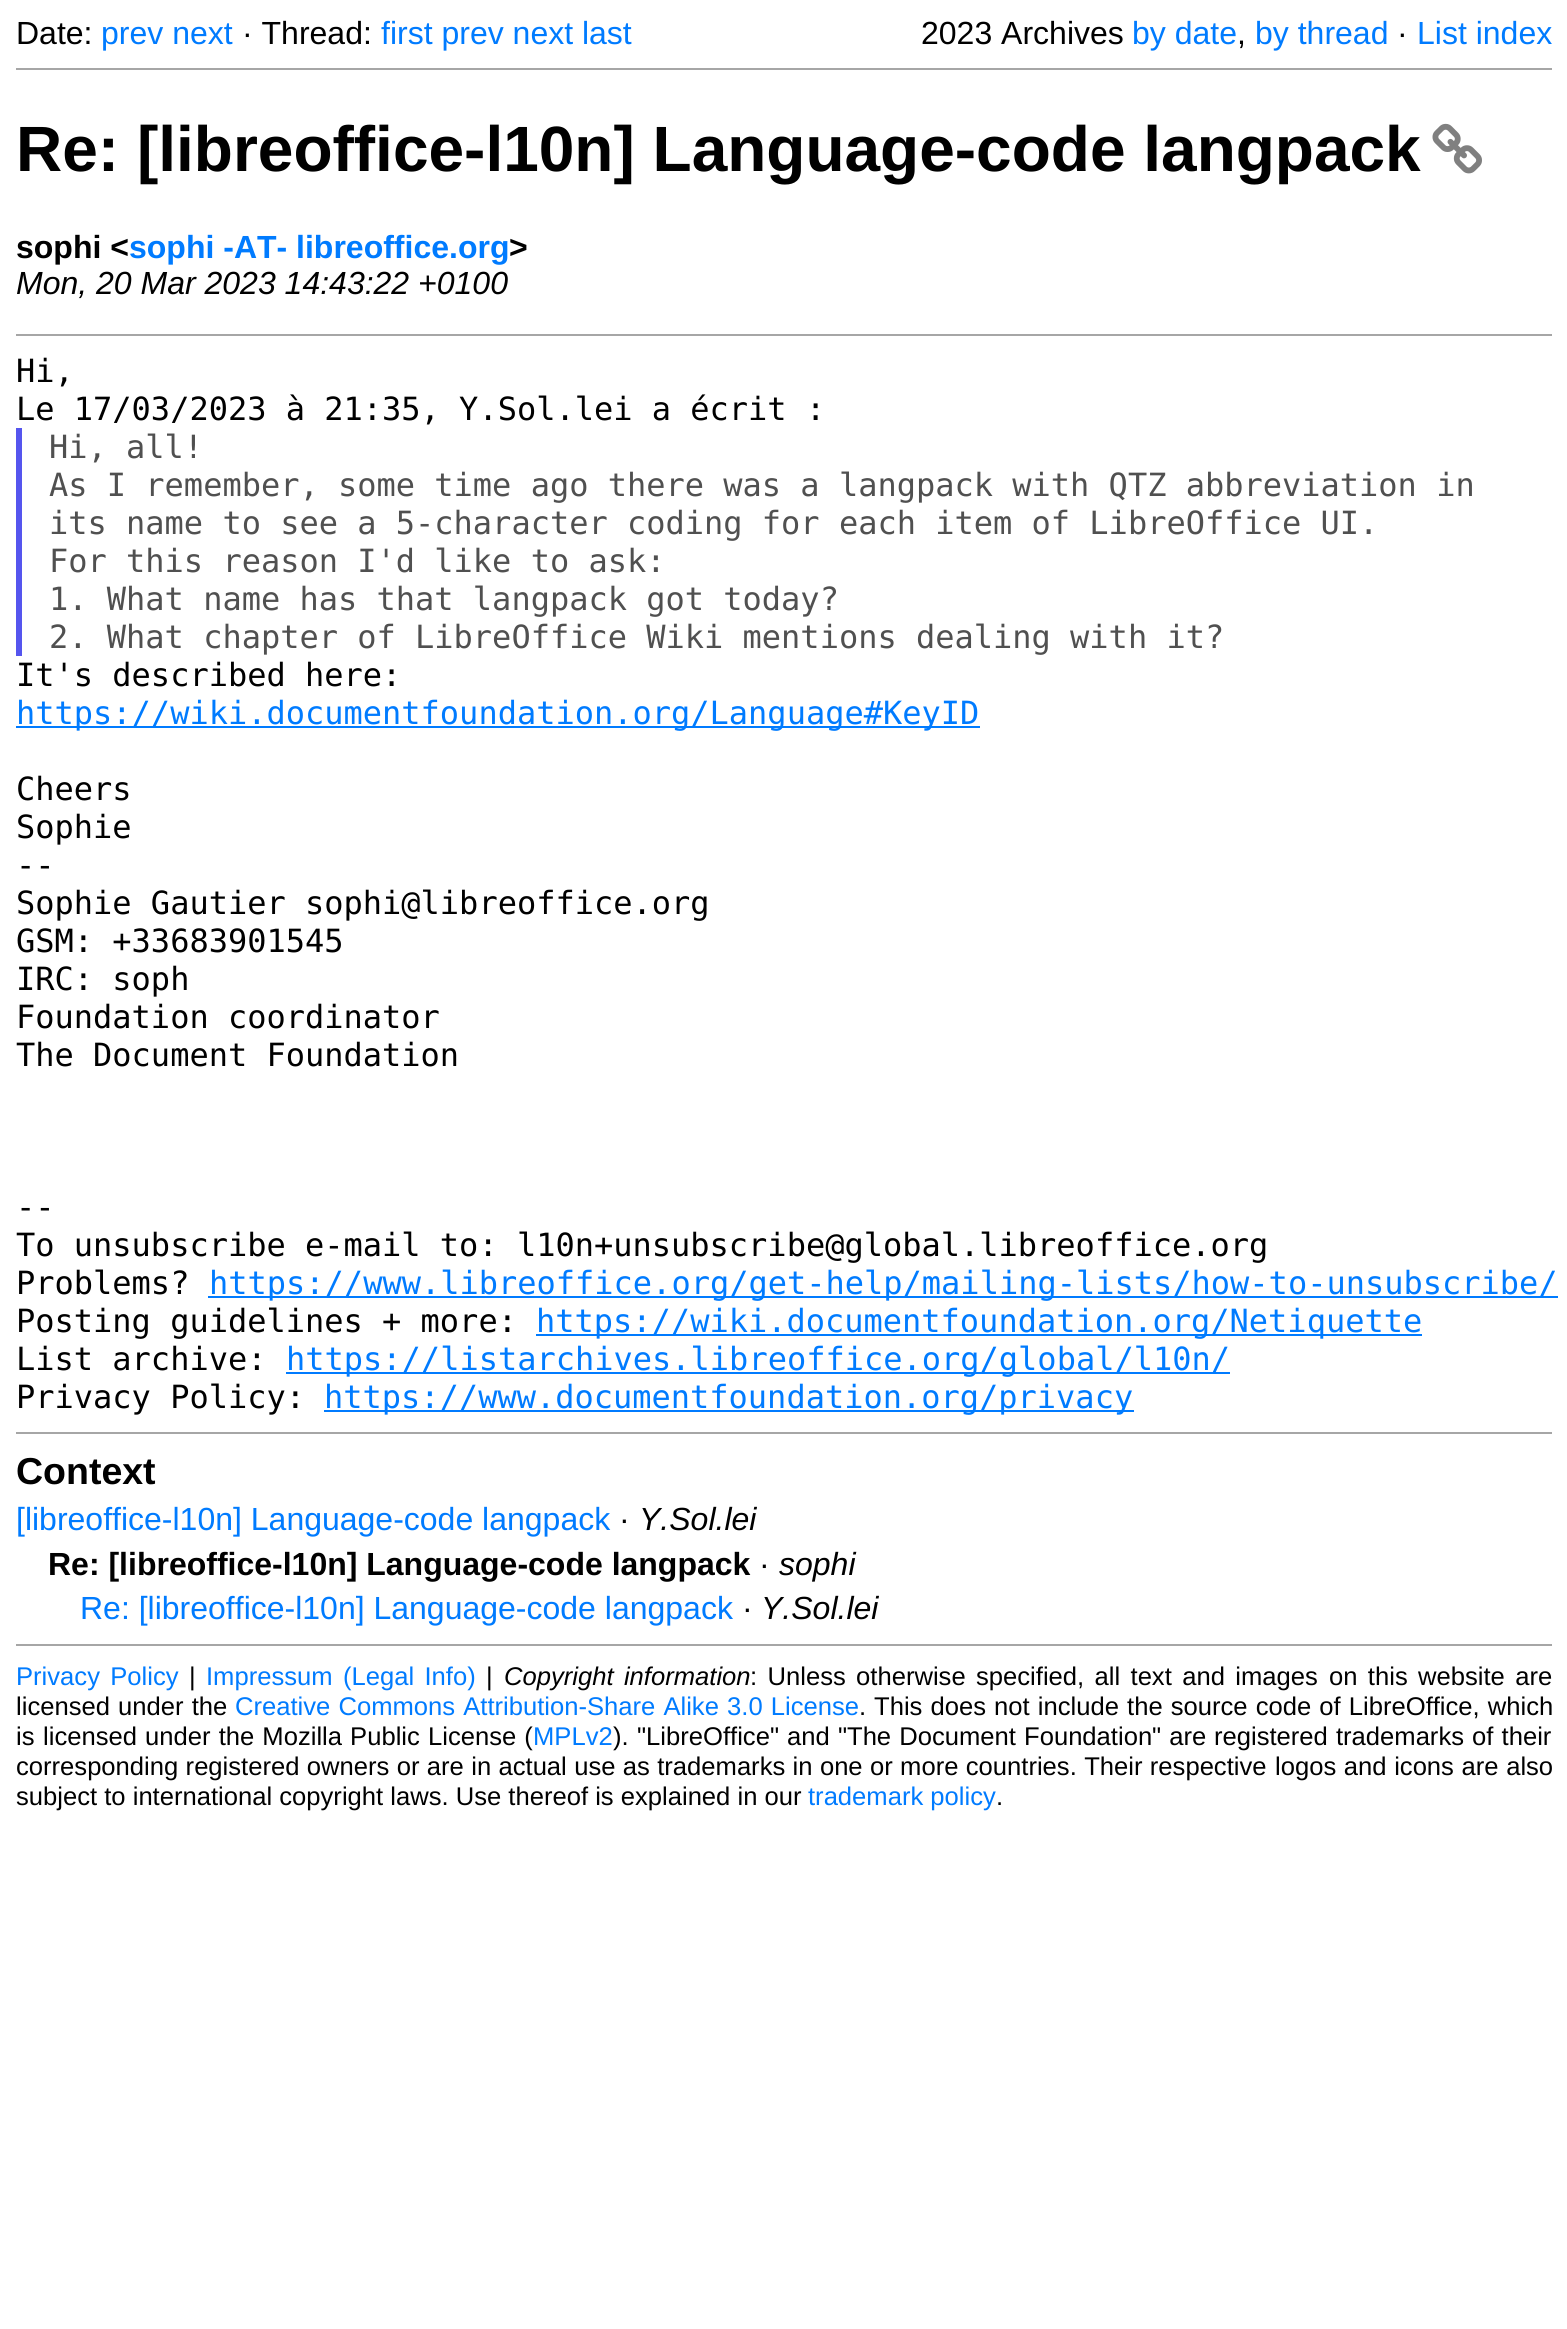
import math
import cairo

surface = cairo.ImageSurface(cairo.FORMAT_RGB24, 1567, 2329)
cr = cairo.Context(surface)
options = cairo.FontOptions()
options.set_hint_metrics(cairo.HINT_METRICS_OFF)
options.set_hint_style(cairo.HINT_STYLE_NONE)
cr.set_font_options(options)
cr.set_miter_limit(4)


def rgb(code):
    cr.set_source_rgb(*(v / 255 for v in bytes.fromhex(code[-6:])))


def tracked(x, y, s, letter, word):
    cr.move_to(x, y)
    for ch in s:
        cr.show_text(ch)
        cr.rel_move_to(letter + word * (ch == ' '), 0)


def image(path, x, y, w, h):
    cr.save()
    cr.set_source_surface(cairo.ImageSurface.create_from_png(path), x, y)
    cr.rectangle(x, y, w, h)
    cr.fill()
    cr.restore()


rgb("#ffffff")
cr.paint()
rgb("#a6a6a6")
cr.rectangle(16, 68, 1536, 2)
cr.fill()
image("img/1.png", 1432, 123, 50, 51)
for x, y, w, h, color in [
    (16, 334, 1536, 2, "#a6a6a6"),
    (16, 428, 6, 228, "#5555ee"),
    (16, 726, 964, 2, "#007bff"),
    (208, 1296, 1350, 2, "#007bff"),
    (536, 1334, 886, 2, "#007bff"),
    (286, 1372, 944, 2, "#007bff"),
    (324, 1410, 810, 2, "#007bff"),
    (16, 1432, 1536, 2, "#a6a6a6"),
    (16, 1644, 1536, 2, "#a6a6a6"),
]:
    rgb(color)
    cr.rectangle(x, y, w, h)
    cr.fill()
cr.select_font_face("Liberation Sans")
cr.set_font_size(32)
rgb("#000000")
cr.move_to(16, 44)
cr.show_text("Date:")
rgb("#007bff")
cr.move_to(101, 44)
cr.show_text("prev next")
rgb("#000000")
cr.move_to(242, 44)
cr.show_text("· Thread:")
rgb("#007bff")
cr.move_to(381, 44)
cr.show_text("first prev next last")
rgb("#000000")
cr.move_to(921, 44)
cr.show_text("2023 Archives")
rgb("#007bff")
cr.move_to(1132, 44)
cr.show_text("by date")
cr.move_to(1255, 44)
cr.show_text("by thread")
rgb("#000000")
cr.move_to(1397, 44)
cr.show_text("·")
rgb("#007bff")
cr.move_to(1417, 44)
cr.show_text("List index")
rgb("#000000")
cr.move_to(1237, 44)
cr.show_text(",")
cr.select_font_face("Liberation Sans", cairo.FONT_SLANT_NORMAL, cairo.FONT_WEIGHT_BOLD)
cr.set_font_size(64)
cr.move_to(16, 171)
cr.show_text("Re: [libreoffice-l10n] Language-code langpack")
cr.set_font_size(32)
cr.move_to(16, 258)
cr.show_text("sophi <")
rgb("#007bff")
cr.move_to(129, 258)
cr.show_text("sophi -AT- libreoffice.org")
rgb("#000000")
cr.move_to(509, 258)
cr.show_text(">")
cr.select_font_face("Liberation Sans", cairo.FONT_SLANT_ITALIC)
cr.move_to(16, 294)
cr.show_text("Mon, 20 Mar 2023 14:43:22 +0100")
cr.select_font_face("DejaVu Sans Mono")
cr.move_to(16, 382)
cr.show_text("Hi,")
cr.move_to(16, 420)
cr.show_text("Le 17/03/2023 à 21:35, Y.Sol.lei a écrit :")
rgb("#505050")
for x, y, s in [
    (49, 458, "Hi, all!"),
    (49, 496, "As I remember, some time ago there was a langpack with QTZ abbreviation in"),
    (49, 534, "its name to see a 5-character coding for each item of LibreOffice UI."),
    (49, 572, "For this reason I'd like to ask:"),
    (49, 610, "1. What name has that langpack got today?"),
    (49, 648, "2. What chapter of LibreOffice Wiki mentions dealing with it?"),
]:
    cr.move_to(x, y)
    cr.show_text(s)
rgb("#000000")
cr.move_to(16, 686)
cr.show_text("It's described here:")
rgb("#007bff")
cr.move_to(16, 724)
cr.show_text("https://wiki.documentfoundation.org/Language#KeyID")
rgb("#000000")
for x, y, s in [
    (16, 800, "Cheers"),
    (16, 838, "Sophie"),
    (16, 876, "--"),
    (16, 914, "Sophie Gautier sophi@libreoffice.org"),
    (16, 952, "GSM: +33683901545"),
    (16, 990, "IRC: soph"),
    (16, 1028, "Foundation coordinator"),
    (16, 1066, "The Document Foundation"),
    (16, 1218, "--"),
    (16, 1256, "To unsubscribe e-mail to: l10n+unsubscribe@global.libreoffice.org"),
    (16, 1294, "Problems?"),
]:
    cr.move_to(x, y)
    cr.show_text(s)
rgb("#007bff")
cr.move_to(209, 1294)
cr.show_text("https://www.libreoffice.org/get-help/mailing-lists/how-to-unsubscribe/")
rgb("#000000")
cr.move_to(16, 1332)
cr.show_text("Posting guidelines + more:")
rgb("#007bff")
cr.move_to(536, 1332)
cr.show_text("https://wiki.documentfoundation.org/Netiquette")
rgb("#000000")
cr.move_to(16, 1370)
cr.show_text("List archive:")
rgb("#007bff")
cr.move_to(286, 1370)
cr.show_text("https://listarchives.libreoffice.org/global/l10n/")
rgb("#000000")
cr.move_to(16, 1408)
cr.show_text("Privacy Policy:")
rgb("#007bff")
cr.move_to(324, 1408)
cr.show_text("https://www.documentfoundation.org/privacy")
cr.select_font_face("Liberation Sans", cairo.FONT_SLANT_NORMAL, cairo.FONT_WEIGHT_BOLD)
cr.set_font_size(37.5)
rgb("#000000")
cr.move_to(16, 1484)
cr.show_text("Context")
cr.select_font_face("Liberation Sans")
cr.set_font_size(32)
rgb("#007bff")
cr.move_to(16, 1530)
cr.show_text("[libreoffice-l10n] Language-code langpack")
rgb("#000000")
cr.move_to(619, 1530)
cr.show_text("·")
cr.select_font_face("Liberation Sans", cairo.FONT_SLANT_ITALIC)
cr.move_to(639, 1530)
cr.show_text("Y.Sol.lei")
cr.select_font_face("Liberation Sans", cairo.FONT_SLANT_NORMAL, cairo.FONT_WEIGHT_BOLD)
cr.move_to(48, 1575)
cr.show_text("Re: [libreoffice-l10n] Language-code langpack")
cr.select_font_face("Liberation Sans")
cr.move_to(759, 1575)
cr.show_text("·")
cr.select_font_face("Liberation Sans", cairo.FONT_SLANT_ITALIC)
cr.move_to(779, 1575)
cr.show_text("sophi")
cr.select_font_face("Liberation Sans")
rgb("#007bff")
cr.move_to(80, 1619)
cr.show_text("Re: [libreoffice-l10n] Language-code langpack")
rgb("#000000")
cr.move_to(742, 1619)
cr.show_text("·")
cr.select_font_face("Liberation Sans", cairo.FONT_SLANT_ITALIC)
cr.move_to(761, 1619)
cr.show_text("Y.Sol.lei")
cr.select_font_face("Liberation Sans")
cr.set_font_size(25.6)
rgb("#007bff")
tracked(16, 1685, "Privacy Policy", 0, 3.25)
rgb("#000000")
cr.move_to(189, 1685)
cr.show_text("|")
rgb("#007bff")
tracked(206, 1685, "Impressum (Legal Info)", 0, 3.25)
rgb("#000000")
cr.move_to(486, 1685)
cr.show_text("|")
cr.select_font_face("Liberation Sans", cairo.FONT_SLANT_ITALIC)
tracked(504, 1685, "Copyright information", 0, 3.25)
cr.select_font_face("Liberation Sans")
tracked(750, 1685, ": Unless otherwise specified, all text and images", 0, 3.25)
tracked(1329, 1685, "on this website are", 0, 3.25)
tracked(16, 1715, "licensed under the", 0, 1)
rgb("#007bff")
tracked(235, 1715, "Creative Commons Attribution-Share Alike 3.0 License", 0, 1)
rgb("#000000")
cr.move_to(859, 1715)
cr.show_text(".")
tracked(874, 1715, "This does not include the source code of LibreOffice, which", 0, 1)
cr.move_to(16, 1745)
cr.show_text("is")
tracked(43, 1745, "licensed under the Mozilla Public License (", 0, 1)
rgb("#007bff")
cr.move_to(533, 1745)
cr.show_text("MPLv2")
rgb("#000000")
cr.move_to(613, 1745)
cr.show_text(").")
tracked(637, 1745, "\"LibreOffice\" and \"The Document Foundation\" are", 0, 1)
tracked(1214, 1745, "registered trademarks of their", 0, 1)
tracked(16, 1775, "corresponding registered owners or are in actual use as trademarks in one or more countries. Their respective", 0, 0.25)
tracked(1275, 1775, "logos and icons are also", 0, 0.5)
cr.move_to(16, 1805)
cr.show_text("subject to international copyright laws. Use thereof is explained in our")
rgb("#007bff")
cr.move_to(808, 1805)
cr.show_text("trademark policy")
rgb("#000000")
cr.move_to(996, 1805)
cr.show_text(".")
surface.write_to_png("page.png")
